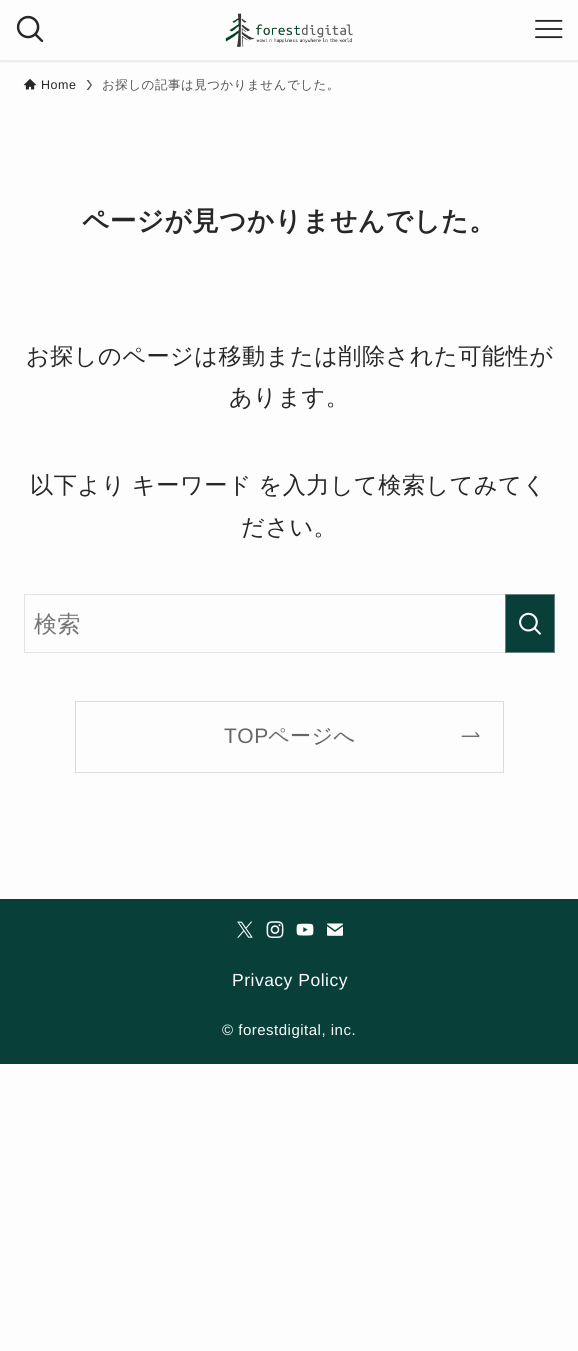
import math
import cairo

surface = cairo.ImageSurface(cairo.FORMAT_RGB24, 578, 1351)
cr = cairo.Context(surface)
options = cairo.FontOptions()
options.set_hint_metrics(cairo.HINT_METRICS_OFF)
options.set_hint_style(cairo.HINT_STYLE_NONE)
cr.set_font_options(options)
cr.set_miter_limit(4)


def rgb(code):
    cr.set_source_rgb(*(v / 255 for v in bytes.fromhex(code[-6:])))


def tracked(x, y, s, letter, word):
    cr.move_to(x, y)
    for ch in s:
        cr.show_text(ch)
        cr.rel_move_to(letter + word * (ch == ' '), 0)


def rrect(x, y, w, h, r):
    cr.new_sub_path()
    for i, (u, v) in enumerate([(x + w - r, y + h - r), (x + r, y + h - r), (x + r, y + r), (x + w - r, y + r)]):
        cr.arc(u, v, r, i * math.pi / 2, (i + 1) * math.pi / 2)
    cr.close_path()


def soft_shadow(x, y, w, h, r, blur, alpha):
    cr.push_group_with_content(cairo.CONTENT_ALPHA)
    cr.set_operator(cairo.OPERATOR_SOURCE)
    for i in range(15, -16, -2):
        e = blur * i / 6
        if min(w, h) + 2 * e > 0:
            cr.set_source_rgba(0, 0, 0, alpha * math.erfc((i - 1) / 8.5) / 2)
            rrect(x - e, y - e, w + 2 * e, h + 2 * e, max(0, min(r + e + blur * .6, min(w, h) / 2 + e)))
            cr.fill()
    cr.mask(cr.pop_group())


def image(path, x, y, w, h):
    cr.save()
    cr.set_source_surface(cairo.ImageSurface.create_from_png(path), x, y)
    cr.rectangle(x, y, w, h)
    cr.fill()
    cr.restore()


rgb("#fdfdfd")
cr.paint()
cr.save()
cr.rectangle(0, 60, 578, 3)
cr.clip()
rgb("#000000")
soft_shadow(0, 1, 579, 60, 0, 2.5, 0.12)
cr.restore()
image("img/1.png", 16, 15, 28, 28)
image("img/2.png", 225, 13, 128, 34)
image("img/3.png", 535, 19, 28, 20)
image("img/4.png", 23, 78, 14, 12)
rgb("#525252")
cr.new_path()
cr.move_to(88.5, 80)
cr.line_to(86.5, 80)
cr.line_to(90.5, 85)
cr.line_to(86.5, 90)
cr.line_to(88.5, 90)
cr.line_to(92, 85)
cr.close_path()
cr.fill()
cr.rectangle(24.5, 594.5, 530, 58)
rgb("#e3e3e3")
cr.set_line_width(1)
cr.stroke()
rgb("#093f39")
cr.rectangle(505.5, 594.5, 49, 58)
cr.fill_preserve()
rgb("#688380")
cr.stroke()
image("img/5.png", 519, 612, 22, 23)
cr.rectangle(75.5, 701.5, 428, 71)
rgb("#dcdcdc")
cr.stroke()
image("img/6.png", 461, 732, 19, 5)
rgb("#093f39")
cr.rectangle(0, 899, 578, 165)
cr.fill()
image("img/7.png", 237, 921, 16, 17)
image("img/8.png", 266, 921, 18, 17)
image("img/9.png", 296, 923, 18, 13)
image("img/10.png", 327, 923, 16, 13)
cr.select_font_face("Liberation Sans")
cr.set_font_size(12.5)
rgb("#272727")
tracked(41, 89, "Home", 0.5, 0)
cr.select_font_face("WenQuanYi Zen Hei Medium")
rgb("#525252")
tracked(102, 89, "お探しの記事は見つかりませんでした。", 0.5, 0)
cr.select_font_face("WenQuanYi Zen Hei", cairo.FONT_SLANT_NORMAL, cairo.FONT_WEIGHT_BOLD)
cr.set_font_size(26.6)
rgb("#272727")
tracked(82, 230, "ページが見つかりませんでした。", 0.5, 0)
cr.select_font_face("WenQuanYi Zen Hei Medium")
cr.set_font_size(23.15)
tracked(26, 364, "お探しのページは移動または削除された可能性が", 0.5, 0)
tracked(229, 405, "あります。", 0.5, 0)
tracked(30, 493, "以下より キーワード を入力して検索してみてく", 0.5, -1)
tracked(241, 535, "ださい。", 0.5, 0)
rgb("#757575")
cr.move_to(34, 632)
cr.show_text("検索")
cr.select_font_face("Liberation Sans")
cr.set_font_size(21)
rgb("#666666")
tracked(224, 743, "TOP", 0.5, 0)
cr.select_font_face("WenQuanYi Zen Hei Medium")
tracked(268, 743, "ページへ", 0.5, 0)
cr.select_font_face("Liberation Sans")
cr.set_font_size(17.5)
rgb("#fdfdfd")
tracked(232, 986, "Privacy Policy", 0.5, 0)
cr.set_font_size(15)
tracked(222, 1035, "© forestdigital, inc.", 0.5, 0)
surface.write_to_png("page.png")
